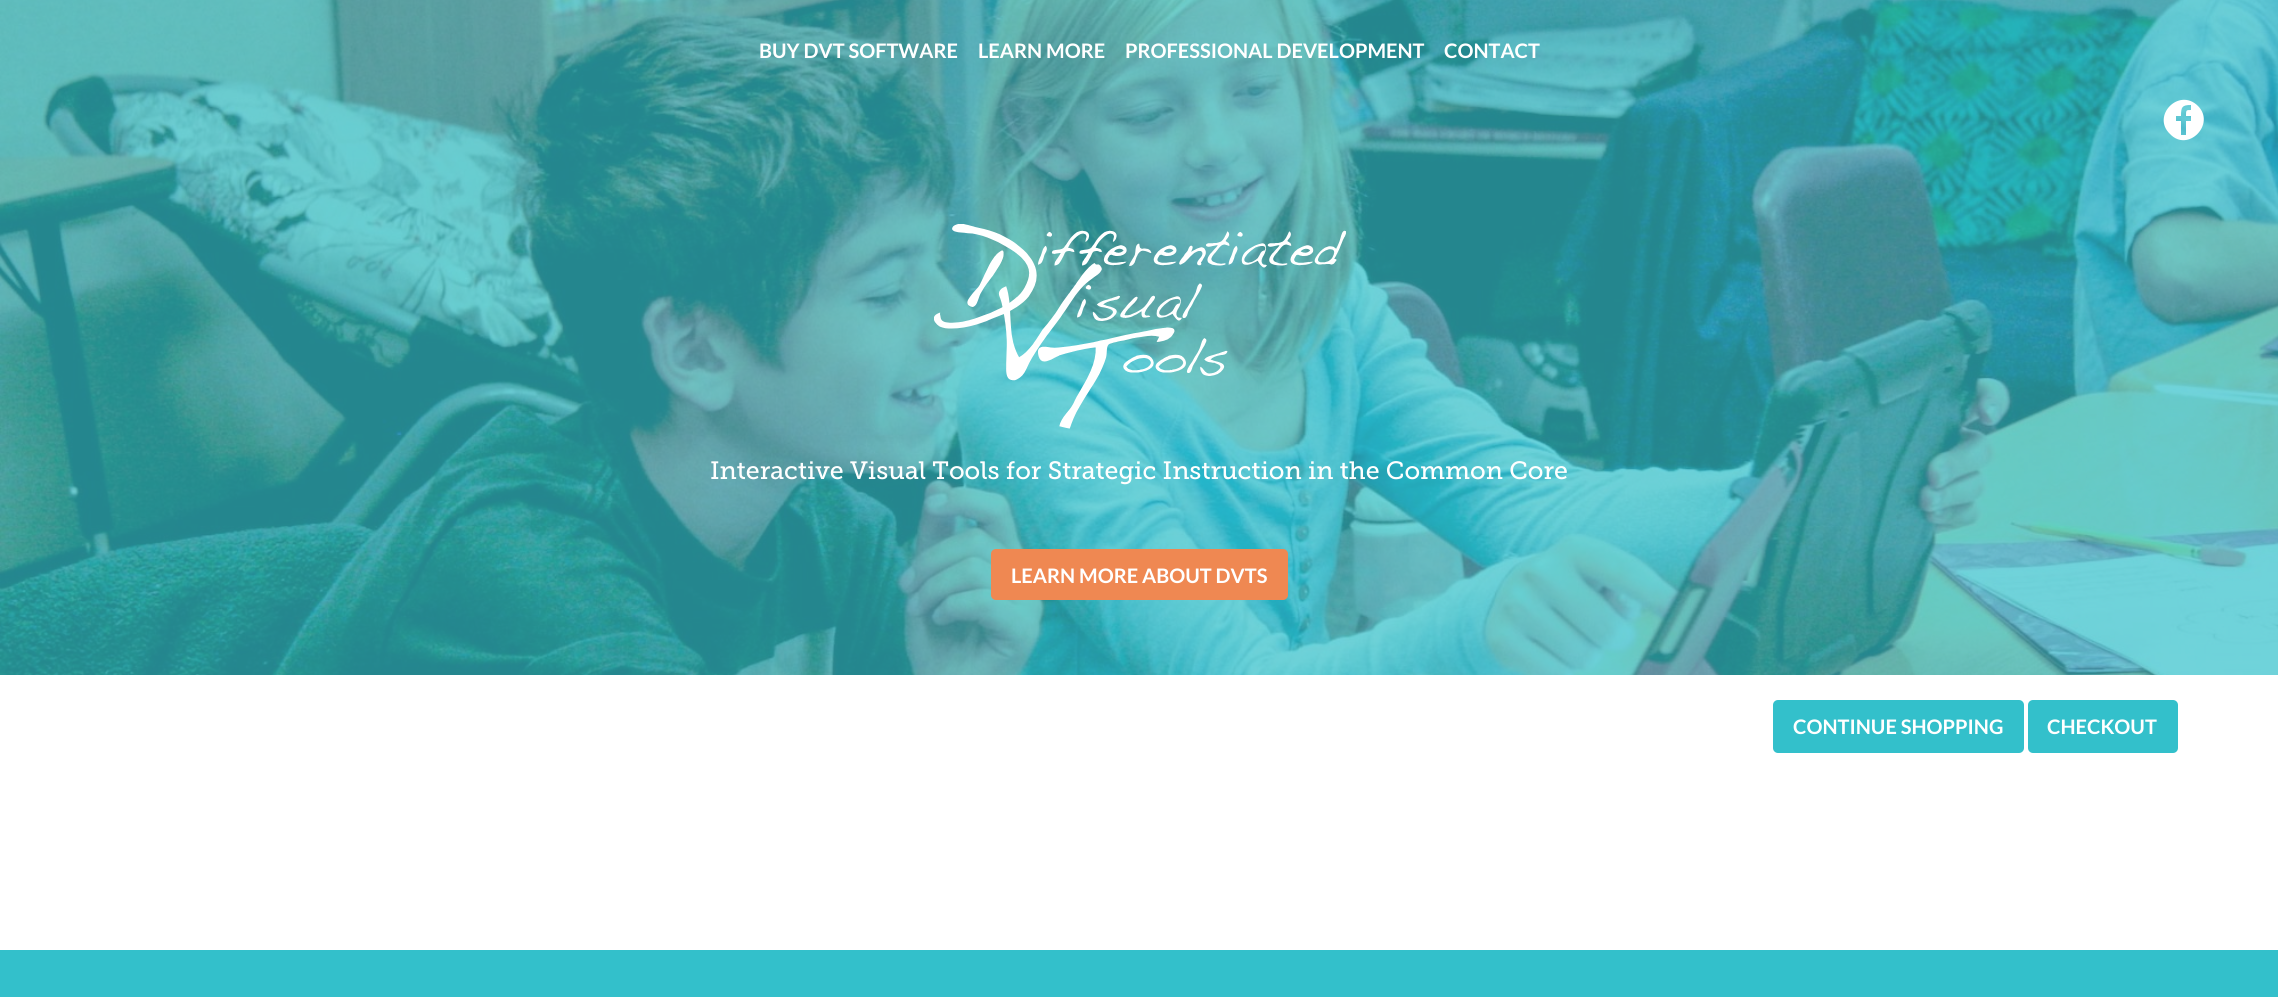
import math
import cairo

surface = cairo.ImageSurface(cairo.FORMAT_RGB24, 2278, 997)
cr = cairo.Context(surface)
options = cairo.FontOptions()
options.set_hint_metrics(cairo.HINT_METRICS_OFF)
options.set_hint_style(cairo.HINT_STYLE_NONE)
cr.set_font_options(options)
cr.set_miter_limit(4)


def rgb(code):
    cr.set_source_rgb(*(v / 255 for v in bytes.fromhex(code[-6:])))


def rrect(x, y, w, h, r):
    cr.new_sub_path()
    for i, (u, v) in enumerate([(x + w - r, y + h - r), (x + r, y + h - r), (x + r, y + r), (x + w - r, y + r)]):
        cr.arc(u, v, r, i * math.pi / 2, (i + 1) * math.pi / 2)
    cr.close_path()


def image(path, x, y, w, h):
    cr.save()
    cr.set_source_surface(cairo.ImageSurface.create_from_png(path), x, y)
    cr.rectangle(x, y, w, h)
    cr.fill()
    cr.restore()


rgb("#ffffff")
cr.paint()
image("img/1.png", 0, 0, 2278, 675)
rgb("#ffffff")
cr.new_path()
cr.move_to(2198, 106)
cr.curve_to(2179, 87, 2151, 116, 2170, 134)
cr.curve_to(2188, 153, 2216, 124, 2198, 106)
cr.close_path()
cr.move_to(2191, 110)
cr.curve_to(2186, 110, 2186, 110, 2186, 116)
cr.line_to(2191, 116)
cr.line_to(2191, 121)
cr.line_to(2186, 121)
cr.line_to(2186, 135)
cr.line_to(2181, 135)
cr.line_to(2181, 121)
cr.line_to(2176, 121)
cr.line_to(2176, 116)
cr.line_to(2181, 116)
cr.curve_to(2181, 107, 2182, 105, 2191, 105)
cr.close_path()
cr.fill()
image("img/2.png", 934, 224, 412, 205)
rgb("#ef8852")
rrect(991, 549, 297, 51, 5)
cr.fill()
rgb("#33c0cb")
rrect(1773, 700, 251, 53, 5)
cr.fill()
rrect(2028, 700, 150, 53, 5)
cr.fill()
cr.rectangle(0, 950, 2278, 47)
cr.fill()
cr.select_font_face("Lato", cairo.FONT_SLANT_NORMAL, cairo.FONT_WEIGHT_BOLD)
cr.set_font_size(20)
rgb("#ffffff")
for x, y, s in [
    (759, 58, "BUY DVT SOFTWARE"),
    (978, 58, "LEARN MORE"),
    (1125, 58, "PROFESSIONAL DEVELOPMENT"),
    (1444, 58, "CONTACT"),
]:
    cr.move_to(x, y)
    cr.show_text(s)
cr.select_font_face("Museo Slab")
cr.set_font_size(25)
cr.move_to(710, 479)
cr.show_text("Interactive Visual Tools for Strategic Instruction in the Common Core")
cr.select_font_face("Lato", cairo.FONT_SLANT_NORMAL, cairo.FONT_WEIGHT_BOLD)
cr.set_font_size(20)
for x, y, s in [
    (1011, 583, "LEARN MORE ABOUT DVTS"),
    (1793, 734, "CONTINUE SHOPPING"),
    (2047, 734, "CHECKOUT"),
]:
    cr.move_to(x, y)
    cr.show_text(s)
surface.write_to_png("page.png")
